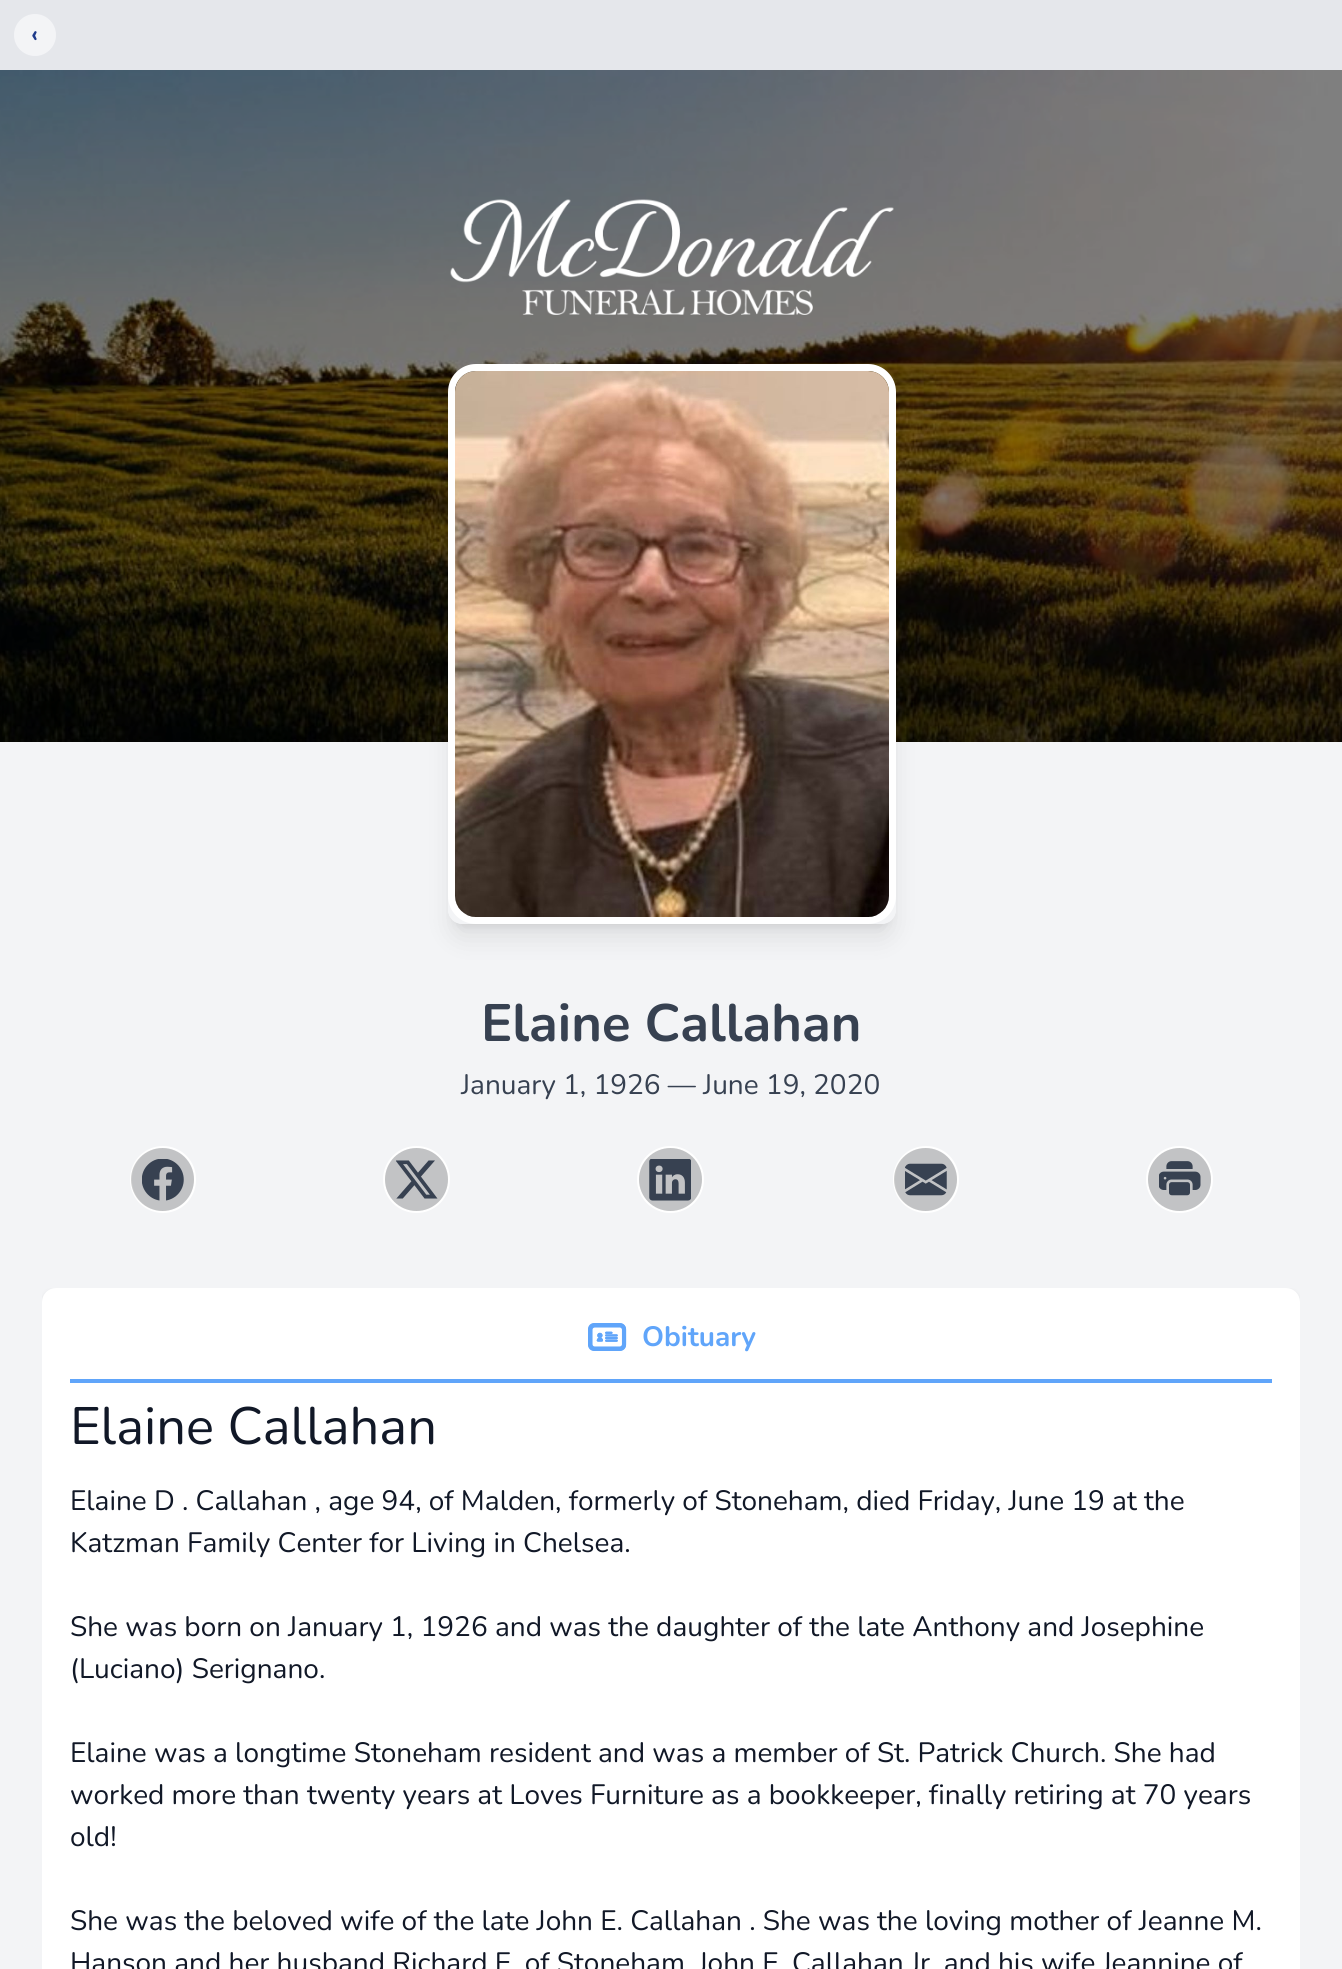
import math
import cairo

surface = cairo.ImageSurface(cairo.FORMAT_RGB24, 1342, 1969)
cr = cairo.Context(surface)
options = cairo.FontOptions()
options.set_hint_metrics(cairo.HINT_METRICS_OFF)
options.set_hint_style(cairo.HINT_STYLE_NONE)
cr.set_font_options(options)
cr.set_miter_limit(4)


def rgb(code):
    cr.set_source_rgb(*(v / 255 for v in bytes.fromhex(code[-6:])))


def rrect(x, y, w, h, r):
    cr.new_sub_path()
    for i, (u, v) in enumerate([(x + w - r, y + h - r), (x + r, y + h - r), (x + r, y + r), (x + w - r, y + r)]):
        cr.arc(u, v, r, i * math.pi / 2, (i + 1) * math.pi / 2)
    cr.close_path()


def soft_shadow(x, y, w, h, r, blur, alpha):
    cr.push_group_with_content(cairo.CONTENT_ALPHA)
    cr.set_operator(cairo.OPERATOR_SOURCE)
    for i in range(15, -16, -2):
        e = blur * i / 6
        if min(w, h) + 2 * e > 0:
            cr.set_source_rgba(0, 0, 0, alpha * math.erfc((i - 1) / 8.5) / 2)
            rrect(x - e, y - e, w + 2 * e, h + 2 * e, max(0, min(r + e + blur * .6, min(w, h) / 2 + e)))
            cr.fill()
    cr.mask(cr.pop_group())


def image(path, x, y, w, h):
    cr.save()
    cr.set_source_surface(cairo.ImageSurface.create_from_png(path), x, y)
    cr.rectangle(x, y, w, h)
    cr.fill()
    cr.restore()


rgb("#f3f4f6")
cr.paint()
rgb("#e5e7eb")
cr.rectangle(0, 0, 1342, 70)
cr.fill()
rgb("#f3f4f6")
cr.arc(35, 35, 21, 0, 2 * math.pi)
cr.fill()
image("img/1.png", 0, 70, 1342, 672)
image("img/2.png", 450, 199, 444, 116)
cr.save()
cr.set_fill_rule(cairo.FILL_RULE_EVEN_ODD)
cr.new_path()
cr.move_to(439, 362)
cr.line_to(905, 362)
cr.line_to(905, 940)
cr.line_to(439, 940)
cr.close_path()
cr.move_to(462, 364)
cr.line_to(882, 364)
cr.curve_to(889.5, 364, 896, 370.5, 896, 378)
cr.line_to(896, 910)
cr.curve_to(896, 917.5, 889.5, 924, 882, 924)
cr.line_to(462, 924)
cr.curve_to(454.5, 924, 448, 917.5, 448, 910)
cr.line_to(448, 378)
cr.curve_to(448, 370.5, 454.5, 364, 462, 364)
cr.close_path()
cr.clip()
rgb("#000000")
soft_shadow(455, 378, 434, 546, 7, 5, 0.1)
cr.restore()
cr.save()
cr.set_fill_rule(cairo.FILL_RULE_EVEN_ODD)
cr.new_path()
cr.move_to(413, 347)
cr.line_to(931, 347)
cr.line_to(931, 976)
cr.line_to(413, 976)
cr.close_path()
cr.move_to(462, 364)
cr.line_to(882, 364)
cr.curve_to(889.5, 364, 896, 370.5, 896, 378)
cr.line_to(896, 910)
cr.curve_to(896, 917.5, 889.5, 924, 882, 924)
cr.line_to(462, 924)
cr.curve_to(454.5, 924, 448, 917.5, 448, 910)
cr.line_to(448, 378)
cr.curve_to(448, 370.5, 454.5, 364, 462, 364)
cr.close_path()
cr.clip()
rgb("#000000")
soft_shadow(453, 387, 438, 549, 9, 13, 0.1)
cr.restore()
rrect(451.5, 367.5, 441, 553, 24.5)
rgb("#ffffff")
cr.set_line_width(7)
cr.stroke()
image("img/3.png", 455, 371, 434, 546)
rrect(131, 1147, 64, 65, 32)
cr.set_line_width(2)
cr.stroke()
cr.set_source_rgba(0, 0, 0, 0.2)
cr.arc(162.5, 1179.5, 31.5, 0, 2 * math.pi)
cr.fill()
image("img/4.png", 142, 1159, 42, 42)
cr.arc(416.5, 1179.5, 32.5, 0, 2 * math.pi)
rgb("#ffffff")
cr.stroke()
cr.set_source_rgba(0, 0, 0, 0.2)
cr.arc(416.5, 1179.5, 31.5, 0, 2 * math.pi)
cr.fill()
image("img/5.png", 396, 1160, 42, 39)
cr.arc(670.5, 1179.5, 32.5, 0, 2 * math.pi)
rgb("#ffffff")
cr.stroke()
cr.set_source_rgba(0, 0, 0, 0.2)
cr.arc(670.5, 1179.5, 31.5, 0, 2 * math.pi)
cr.fill()
image("img/6.png", 649, 1159, 42, 42)
rrect(894, 1147, 64, 65, 32)
rgb("#ffffff")
cr.stroke()
cr.set_source_rgba(0, 0, 0, 0.2)
cr.arc(925.5, 1179.5, 31.5, 0, 2 * math.pi)
cr.fill()
image("img/7.png", 905, 1163, 42, 33)
cr.arc(1179.5, 1179.5, 32.5, 0, 2 * math.pi)
rgb("#ffffff")
cr.stroke()
cr.set_source_rgba(0, 0, 0, 0.2)
cr.arc(1179.5, 1179.5, 31.5, 0, 2 * math.pi)
cr.fill()
image("img/8.png", 1159, 1161, 42, 35)
cr.save()
cr.rectangle(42, 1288, 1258, 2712)
cr.clip()
rgb("#000000")
soft_shadow(42, 1290, 1258, 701, 14, 2.5, 0.1)
cr.restore()
rgb("#ffffff")
rrect(42, 1288, 1258, 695, 14)
cr.fill()
rgb("#60a5fa")
cr.rectangle(70, 1379, 1202, 4)
cr.fill()
image("img/9.png", 588, 1323, 39, 28)
cr.select_font_face("Nunito", cairo.FONT_SLANT_NORMAL, cairo.FONT_WEIGHT_BOLD)
cr.set_font_size(24)
rgb("#1e3a8a")
cr.move_to(31, 42)
cr.show_text("‹")
cr.set_font_size(52.5)
rgb("#374151")
cr.move_to(481, 1041)
cr.show_text("Elaine Callahan")
cr.select_font_face("Nunito")
cr.set_font_size(28)
cr.move_to(461, 1094)
cr.show_text("January 1, 1926 — June 19, 2020")
cr.select_font_face("Nunito", cairo.FONT_SLANT_NORMAL, cairo.FONT_WEIGHT_BOLD)
rgb("#60a5fa")
cr.move_to(642, 1346)
cr.show_text("Obituary")
cr.select_font_face("Nunito")
cr.set_font_size(52.5)
rgb("#111827")
cr.move_to(70, 1444)
cr.show_text("Elaine Callahan")
cr.set_font_size(28)
for x, y, s in [
    (70, 1510, "Elaine D . Callahan , age 94, of Malden, formerly of Stoneham, died Friday, June 19 at the"),
    (70, 1552, "Katzman Family Center for Living in Chelsea."),
    (70, 1636, "She was born on January 1, 1926 and was the daughter of the late Anthony and Josephine"),
    (70, 1678, "(Luciano) Serignano."),
    (70, 1762, "Elaine was a longtime Stoneham resident and was a member of St. Patrick Church. She had"),
    (70, 1804, "worked more than twenty years at Loves Furniture as a bookkeeper, finally retiring at 70 years"),
    (70, 1846, "old!"),
    (70, 1930, "She was the beloved wife of the late John E. Callahan . She was the loving mother of Jeanne M."),
    (70, 1972, "Hanson and her husband Richard E. of Stoneham, John E"),
    (792, 1972, "Callahan Jr. and his wife Jeannine of"),
]:
    cr.move_to(x, y)
    cr.show_text(s)
surface.write_to_png("page.png")
